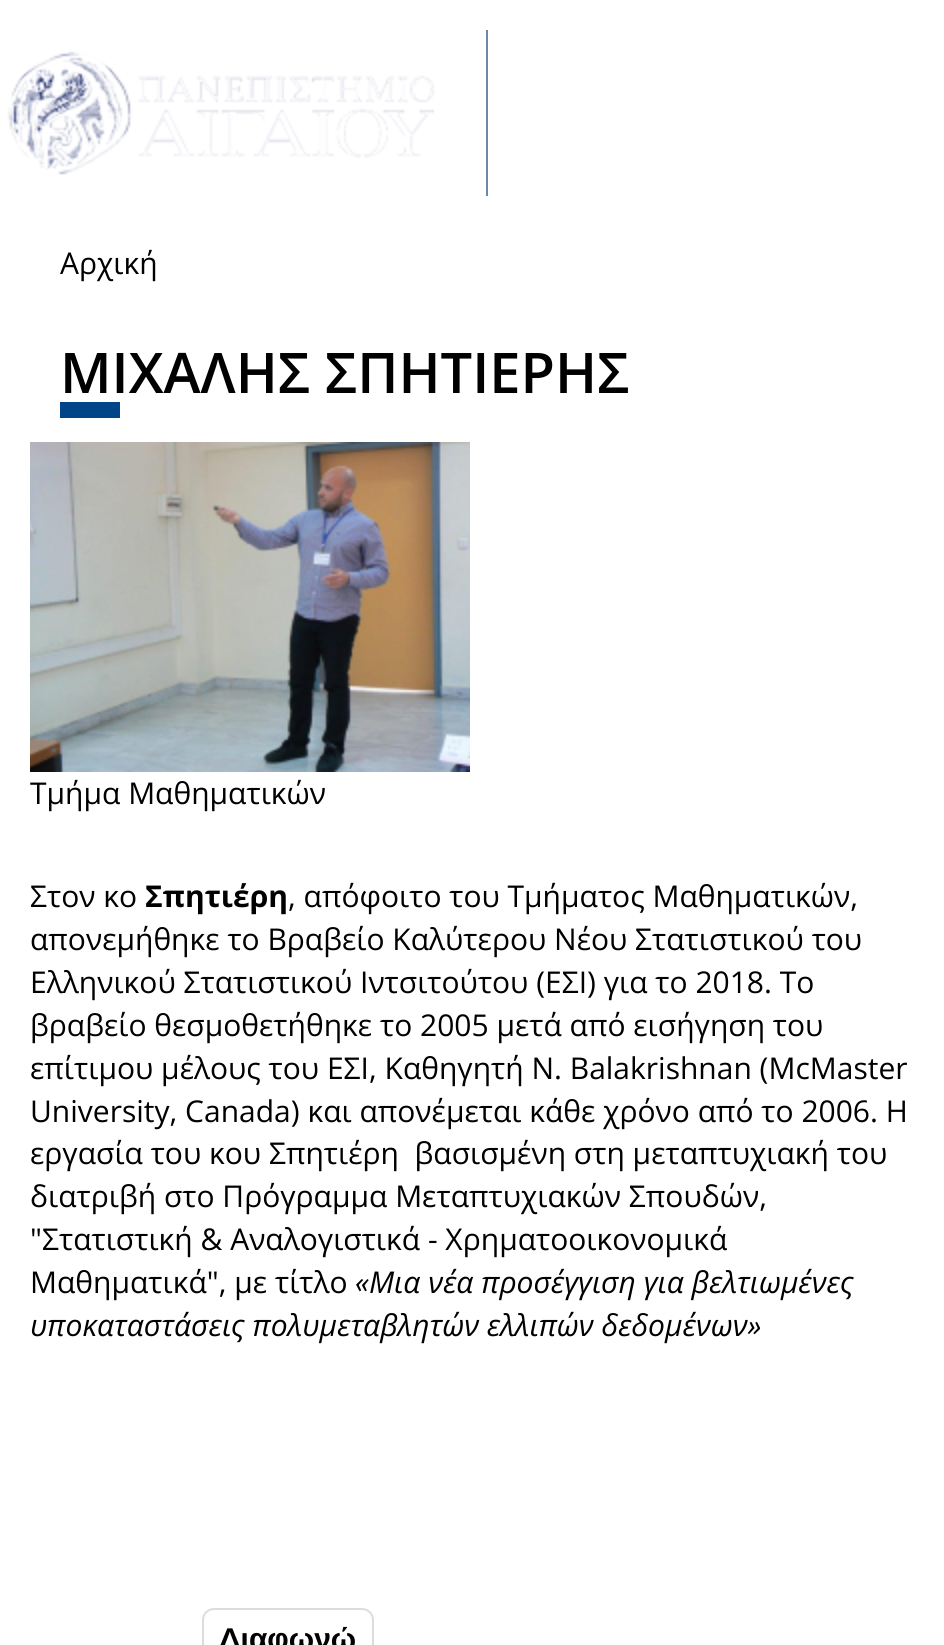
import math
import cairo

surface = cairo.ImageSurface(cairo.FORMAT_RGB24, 944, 1645)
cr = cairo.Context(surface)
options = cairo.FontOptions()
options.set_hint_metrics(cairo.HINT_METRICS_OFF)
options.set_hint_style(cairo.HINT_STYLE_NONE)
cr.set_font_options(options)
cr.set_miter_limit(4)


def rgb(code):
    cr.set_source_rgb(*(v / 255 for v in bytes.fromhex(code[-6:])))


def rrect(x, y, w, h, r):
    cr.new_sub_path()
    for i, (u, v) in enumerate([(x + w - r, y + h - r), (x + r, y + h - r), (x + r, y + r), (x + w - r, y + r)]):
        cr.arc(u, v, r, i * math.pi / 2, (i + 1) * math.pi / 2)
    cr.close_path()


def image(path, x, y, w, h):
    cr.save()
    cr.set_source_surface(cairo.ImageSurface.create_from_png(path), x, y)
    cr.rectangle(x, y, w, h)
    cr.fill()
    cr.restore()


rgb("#ffffff")
cr.paint()
rgb("#6b88a6")
cr.rectangle(486, 30, 2, 166)
cr.fill()
image("img/1.png", 7, 51, 428, 124)
rgb("#004588")
cr.rectangle(60, 402, 60, 16)
cr.fill()
image("img/2.png", 30, 442, 440, 330)
rrect(203, 1609, 170, 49, 11)
rgb("#dcdcdc")
cr.stroke()
cr.select_font_face("Open Sans")
cr.set_font_size(30)
rgb("#000000")
cr.move_to(60, 274)
cr.show_text("Αρχική")
cr.select_font_face("Open Sans SemiBold")
cr.set_font_size(56)
cr.move_to(60, 393)
cr.show_text("ΜΙΧΑΛΗΣ ΣΠΗΤΙΕΡΗΣ")
cr.select_font_face("Open Sans")
cr.set_font_size(30)
cr.move_to(30, 804)
cr.show_text("Τμήμα Μαθηματικών")
cr.move_to(30, 907)
cr.show_text("Στον κο")
cr.select_font_face("Open Sans", cairo.FONT_SLANT_NORMAL, cairo.FONT_WEIGHT_BOLD)
cr.move_to(145, 907)
cr.show_text("Σπητιέρη")
cr.select_font_face("Open Sans")
for x, y, s in [
    (288, 907, ", απόφοιτο του Τμήματος Μαθηματικών,"),
    (30, 950, "απονεμήθηκε το Βραβείο Καλύτερου Νέου Στατιστικού του"),
    (30, 993, "Ελληνικού Στατιστικού Ιντσιτούτου (ΕΣΙ) για το 2018. Το"),
    (30, 1036, "βραβείο θεσμοθετήθηκε το 2005 μετά από εισήγηση του"),
    (30, 1079, "επίτιμου μέλους του ΕΣΙ, Καθηγητή Ν. Balakrishnan (McMaster"),
    (30, 1122, "University, Canada) και απονέμεται κάθε χρόνο από το 2006. Η"),
    (30, 1164, "εργασία του κου Σπητιέρη  βασισμένη στη μεταπτυχιακή του"),
    (30, 1207, "διατριβή στο Πρόγραμμα Μεταπτυχιακών Σπουδών,"),
    (30, 1250, "\"Στατιστική & Αναλογιστικά - Χρηματοοικονομικά"),
    (30, 1293, "Μαθηματικά\", με τίτλο"),
]:
    cr.move_to(x, y)
    cr.show_text(s)
cr.select_font_face("Open Sans", cairo.FONT_SLANT_ITALIC)
cr.move_to(355, 1293)
cr.show_text("«Μια νέα προσέγγιση για βελτιωμένες")
cr.move_to(30, 1336)
cr.show_text("υποκαταστάσεις πολυμεταβλητών ελλιπών δεδομένων»")
cr.select_font_face("Liberation Sans", cairo.FONT_SLANT_NORMAL, cairo.FONT_WEIGHT_BOLD)
cr.move_to(219, 1649)
cr.show_text("Διαφωνώ")
surface.write_to_png("page.png")
